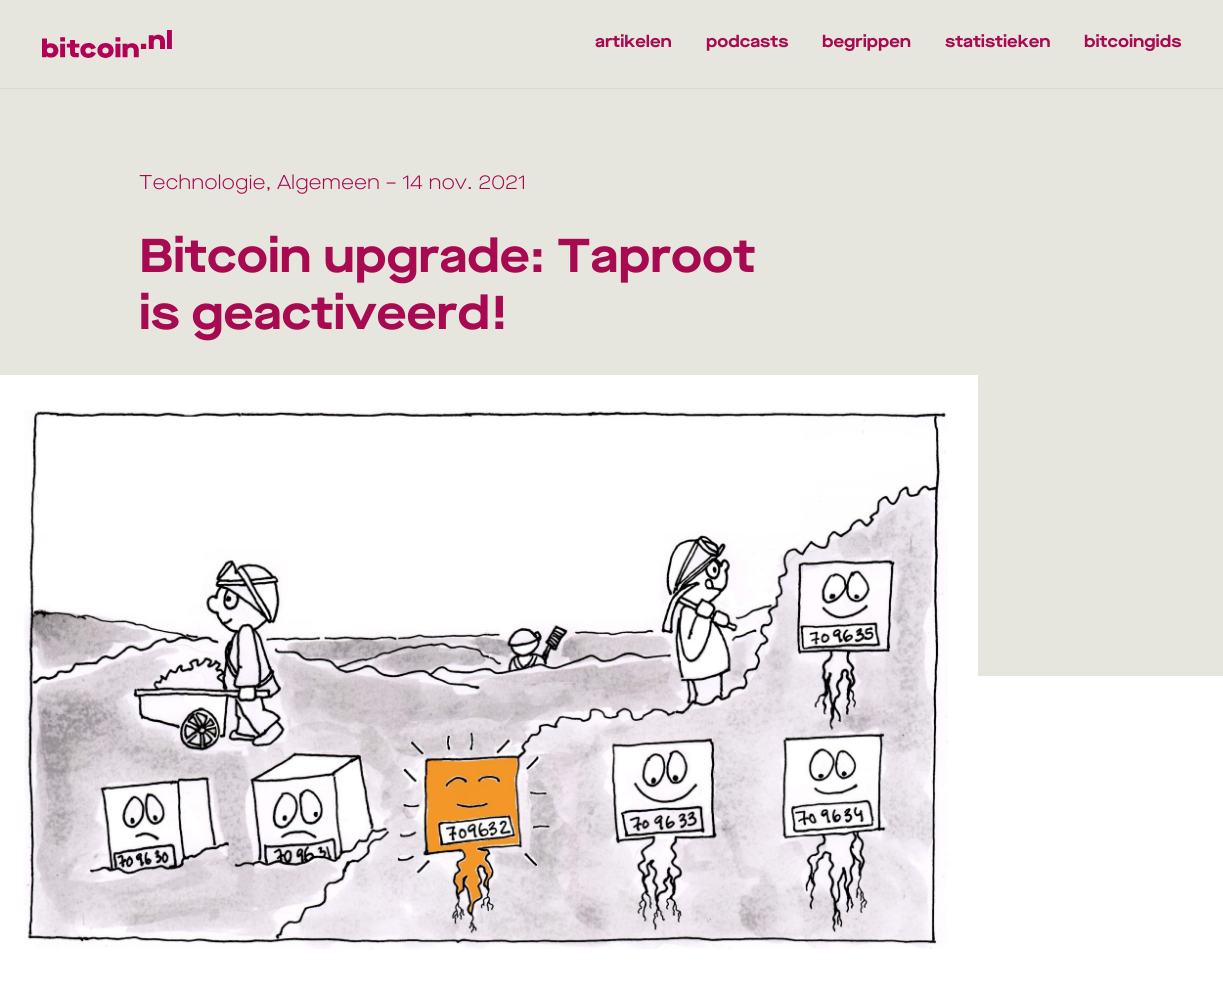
import math
import cairo

surface = cairo.ImageSurface(cairo.FORMAT_RGB24, 1223, 982)
cr = cairo.Context(surface)
options = cairo.FontOptions()
options.set_hint_metrics(cairo.HINT_METRICS_OFF)
options.set_hint_style(cairo.HINT_STYLE_NONE)
cr.set_font_options(options)
cr.set_miter_limit(4)


def rgb(code):
    cr.set_source_rgb(*(v / 255 for v in bytes.fromhex(code[-6:])))


def image(path, x, y, w, h):
    cr.save()
    cr.set_source_surface(cairo.ImageSurface.create_from_png(path), x, y)
    cr.rectangle(x, y, w, h)
    cr.fill()
    cr.restore()


rgb("#ffffff")
cr.paint()
rgb("#e6e6df")
cr.rectangle(0, 0, 1223, 88)
cr.fill()
rgb("#d9d9ce")
cr.rectangle(0, 88, 1223, 1)
cr.fill()
image("img/1.png", 42, 30, 130, 28)
rgb("#e6e6df")
cr.rectangle(0, 89, 1223, 587)
cr.fill()
image("img/2.png", 0, 375, 978, 575)
cr.select_font_face("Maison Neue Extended", cairo.FONT_SLANT_NORMAL, cairo.FONT_WEIGHT_BOLD)
cr.set_font_size(16.75)
rgb("#a80a52")
for x, y, s in [
    (595, 47, "artikelen"),
    (706, 47, "podcasts"),
    (822, 47, "begrippen"),
    (945, 47, "statistieken"),
    (1084, 47, "bitcoingids"),
]:
    cr.move_to(x, y)
    cr.show_text(s)
cr.select_font_face("Maison Neue Extended Light")
cr.set_font_size(20)
cr.move_to(139, 189)
cr.show_text("Technologie, Algemeen – 14 nov. 2021")
cr.select_font_face("Maison Neue Extended", cairo.FONT_SLANT_NORMAL, cairo.FONT_WEIGHT_BOLD)
cr.set_font_size(47.4)
cr.move_to(139, 272)
cr.show_text("Bitcoin upgrade: Taproot")
cr.move_to(139, 329)
cr.show_text("is geactiveerd!")
surface.write_to_png("page.png")
